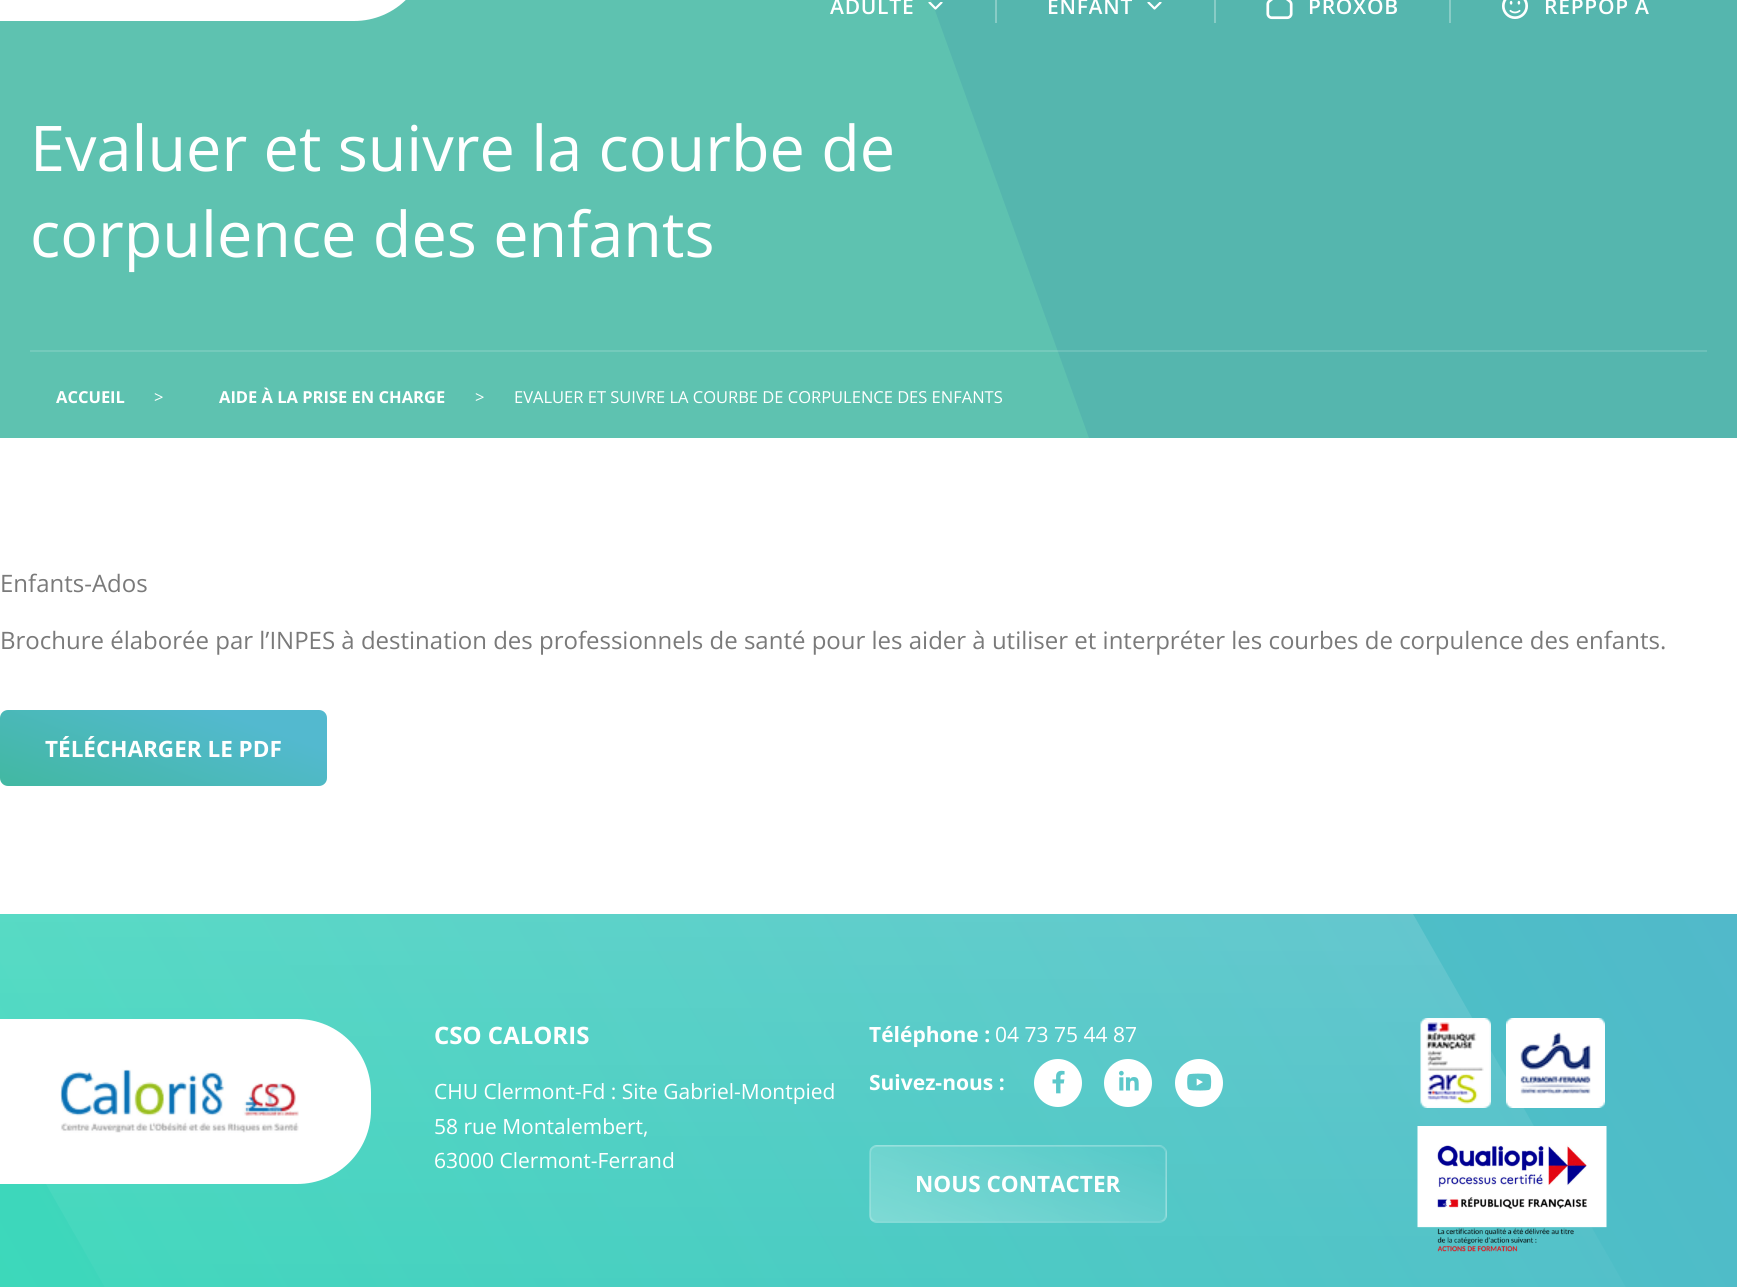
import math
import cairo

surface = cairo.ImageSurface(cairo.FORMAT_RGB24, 1737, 1287)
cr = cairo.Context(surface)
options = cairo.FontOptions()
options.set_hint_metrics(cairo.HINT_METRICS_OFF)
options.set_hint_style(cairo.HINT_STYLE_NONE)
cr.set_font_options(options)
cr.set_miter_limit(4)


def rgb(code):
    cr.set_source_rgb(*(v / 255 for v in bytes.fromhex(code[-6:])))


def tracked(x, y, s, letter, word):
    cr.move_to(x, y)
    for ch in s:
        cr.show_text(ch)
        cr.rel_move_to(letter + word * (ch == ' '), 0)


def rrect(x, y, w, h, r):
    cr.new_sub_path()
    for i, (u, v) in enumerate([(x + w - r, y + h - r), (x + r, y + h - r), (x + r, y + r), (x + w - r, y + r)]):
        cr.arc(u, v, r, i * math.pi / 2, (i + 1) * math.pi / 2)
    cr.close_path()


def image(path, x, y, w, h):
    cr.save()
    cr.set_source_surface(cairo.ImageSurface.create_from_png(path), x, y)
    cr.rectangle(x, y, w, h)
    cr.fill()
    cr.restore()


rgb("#ffffff")
cr.paint()
rgb("#55b6ae")
cr.rectangle(931, 0, 806, 438)
cr.fill()
rgb("#5ec2b0")
cr.new_path()
cr.move_to(-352, -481)
cr.line_to(758, -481)
cr.line_to(1089, 438)
cr.line_to(-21, 438)
cr.line_to(-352, -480)
cr.close_path()
cr.fill()
rgb("#ffffff")
cr.new_path()
cr.move_to(0, -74)
cr.line_to(354, -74)
cr.curve_to(395, -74, 428, -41, 428, 0)
cr.line_to(428, -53)
cr.curve_to(428, -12, 395, 21, 354, 21)
cr.line_to(0, 21)
cr.close_path()
cr.fill()
rgb("#88ccc6")
cr.rectangle(995, 0, 2, 23)
cr.fill()
cr.save()
cr.rectangle(914, 2, 30, 9)
cr.clip()
cr.new_path()
cr.move_to(929.5, 2.5)
cr.line_to(935.5, 8.5)
cr.line_to(941.5, 2.5)
rgb("#ffffff")
cr.set_line_width(2.2)
cr.set_line_cap(cairo.LINE_CAP_ROUND)
cr.set_line_join(cairo.LINE_JOIN_ROUND)
cr.stroke()
cr.restore()
cr.rectangle(1214, 0, 2, 23)
cr.fill()
cr.save()
cr.rectangle(1133, 2, 30, 9)
cr.clip()
cr.new_path()
cr.move_to(1148.5, 2.5)
cr.line_to(1154.5, 8.5)
cr.line_to(1160.5, 2.5)
rgb("#ffffff")
cr.set_line_width(2.2)
cr.set_line_cap(cairo.LINE_CAP_ROUND)
cr.set_line_join(cairo.LINE_JOIN_ROUND)
cr.stroke()
cr.restore()
cr.rectangle(1449, 0, 2, 23)
cr.fill()
image("img/1.png", 1266, 0, 27, 20)
image("img/2.png", 1502, 0, 26, 19)
cr.set_source_rgba(1, 1, 1, 0.14)
cr.rectangle(30, 350, 1677, 2)
cr.fill()
gradient = cairo.LinearGradient(132, 834, 195, 661)
gradient.add_color_stop_rgba(0.01, 0.259, 0.722, 0.635, 1)
gradient.add_color_stop_rgba(0.79, 0.325, 0.725, 0.812, 1)
cr.set_source(gradient)
rrect(0, 710, 327, 76, 8)
cr.fill()
gradient = cairo.LinearGradient(1622, 714, 115, 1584)
gradient.add_color_stop_rgba(0, 0.318, 0.725, 0.792, 1)
gradient.add_color_stop_rgba(1, 0.235, 0.851, 0.729, 1)
cr.set_source(gradient)
cr.rectangle(0, 914, 1737, 373)
cr.fill()
gradient = cairo.LinearGradient(787, 913, 787, 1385)
gradient.add_color_stop_rgba(0, 1, 1, 1, 0.13)
gradient.add_color_stop_rgba(1, 1, 1, 1, 0)
cr.set_source(gradient)
cr.new_path()
cr.move_to(1413, 914)
cr.line_to(1681, 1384)
cr.line_to(160, 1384)
cr.line_to(-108, 914)
cr.close_path()
cr.fill()
rgb("#ffffff")
cr.new_path()
cr.move_to(-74, 1019)
cr.line_to(297, 1019)
cr.curve_to(338, 1019, 371, 1052, 371, 1093)
cr.line_to(371, 1110)
cr.curve_to(371, 1151, 338, 1184, 297, 1184)
cr.line_to(-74, 1184)
cr.close_path()
cr.fill()
image("img/3.png", 60, 1069, 239, 64)
cr.arc(1058, 1083, 23, 0, 2 * math.pi)
cr.fill_preserve()
cr.stroke()
image("img/4.png", 1052, 1070, 13, 24)
cr.arc(1128, 1083, 23, 0, 2 * math.pi)
cr.fill_preserve()
cr.stroke()
image("img/5.png", 1119, 1070, 20, 21)
cr.arc(1199, 1083, 23, 0, 2 * math.pi)
cr.fill_preserve()
cr.stroke()
image("img/6.png", 1187, 1073, 25, 18)
cr.save()
rrect(869, 1145, 298, 78, 8)
cr.clip()
gradient = cairo.LinearGradient(988, 1189, 1047, 1028)
gradient.add_color_stop_rgba(0, 1, 1, 1, 0.27)
gradient.add_color_stop_rgba(1, 1, 1, 1, 0)
cr.set_source(gradient)
cr.rectangle(870, 1145, 296, 1)
cr.fill()
gradient = cairo.LinearGradient(693, 1264, 752, 1103)
gradient.add_color_stop_rgba(0, 1, 1, 1, 0.27)
gradient.add_color_stop_rgba(1, 1, 1, 1, 0)
cr.set_source(gradient)
cr.rectangle(869, 1161, 1, 60)
cr.fill()
gradient = cairo.LinearGradient(988, 1264, 1047, 1103)
gradient.add_color_stop_rgba(0, 1, 1, 1, 0.27)
gradient.add_color_stop_rgba(1, 1, 1, 1, 0)
cr.set_source(gradient)
cr.rectangle(870, 1146, 296, 75)
cr.fill()
gradient = cairo.LinearGradient(1284, 1264, 1343, 1103)
gradient.add_color_stop_rgba(0, 1, 1, 1, 0.27)
gradient.add_color_stop_rgba(1, 1, 1, 1, 0)
cr.set_source(gradient)
cr.rectangle(1166, 1146, 1, 75)
cr.fill()
gradient = cairo.LinearGradient(988, 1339, 1047, 1178)
gradient.add_color_stop_rgba(0, 1, 1, 1, 0.27)
gradient.add_color_stop_rgba(1, 1, 1, 1, 0)
cr.set_source(gradient)
cr.rectangle(870, 1221, 259, 2)
cr.fill()
cr.restore()
rrect(870, 1146, 296, 76, 7)
cr.set_source_rgba(1, 1, 1, 0.19)
cr.stroke()
image("img/7.png", 1420, 1018, 71, 90)
image("img/8.png", 1506, 1018, 99, 90)
image("img/9.png", 1417, 1126, 190, 126)
cr.select_font_face("Open Sans SemiBold")
cr.set_font_size(21)
rgb("#ffffff")
for x, y, s in [
    (830, 14, "ADULTE"),
    (1047, 14, "ENFANT"),
    (1308, 14, "PROXOB"),
    (1544, 14, "REPPOP A"),
]:
    tracked(x, y, s, 0.75, 0)
cr.select_font_face("Open Sans")
cr.set_font_size(63)
cr.move_to(30, 171)
cr.show_text("Evaluer et suivre la courbe de")
cr.move_to(30, 257)
cr.show_text("corpulence des enfants")
cr.select_font_face("Open Sans", cairo.FONT_SLANT_NORMAL, cairo.FONT_WEIGHT_BOLD)
cr.set_font_size(16.5)
cr.move_to(56, 403)
cr.show_text("ACCUEIL")
cr.select_font_face("Open Sans")
cr.move_to(154, 403)
cr.show_text(">")
cr.select_font_face("Open Sans", cairo.FONT_SLANT_NORMAL, cairo.FONT_WEIGHT_BOLD)
cr.move_to(219, 403)
cr.show_text("AIDE À LA PRISE EN CHARGE")
cr.select_font_face("Open Sans")
cr.move_to(475, 403)
cr.show_text(">")
cr.move_to(514, 403)
cr.show_text("EVALUER ET SUIVRE LA COURBE DE CORPULENCE DES ENFANTS")
cr.set_font_size(24)
rgb("#7a7a7a")
cr.move_to(0, 592)
cr.show_text("Enfants-Ados")
cr.move_to(0, 649)
cr.show_text("Brochure élaborée par l’INPES à destination des professionnels de santé pour les aider à utiliser et interpréter les courbes de corpulence des enfants.")
cr.select_font_face("Open Sans", cairo.FONT_SLANT_NORMAL, cairo.FONT_WEIGHT_BOLD)
cr.set_font_size(22.5)
rgb("#ffffff")
cr.move_to(45, 757)
cr.show_text("TÉLÉCHARGER LE PDF")
cr.set_font_size(24)
cr.move_to(434, 1044)
cr.show_text("CSO CALORIS")
cr.select_font_face("Open Sans")
cr.set_font_size(21)
for x, y, s in [
    (434, 1099, "CHU Clermont-Fd : Site Gabriel-Montpied"),
    (434, 1134, "58 rue Montalembert,"),
    (434, 1168, "63000 Clermont-Ferrand"),
]:
    cr.move_to(x, y)
    cr.show_text(s)
cr.select_font_face("Open Sans", cairo.FONT_SLANT_NORMAL, cairo.FONT_WEIGHT_BOLD)
cr.move_to(869, 1042)
cr.show_text("Téléphone :")
cr.select_font_face("Open Sans")
cr.move_to(995, 1042)
cr.show_text("04 73 75 44 87")
cr.select_font_face("Open Sans", cairo.FONT_SLANT_NORMAL, cairo.FONT_WEIGHT_BOLD)
cr.move_to(869, 1090)
cr.show_text("Suivez-nous :")
cr.set_font_size(22.5)
cr.move_to(915, 1192)
cr.show_text("NOUS CONTACTER")
surface.write_to_png("page.png")
